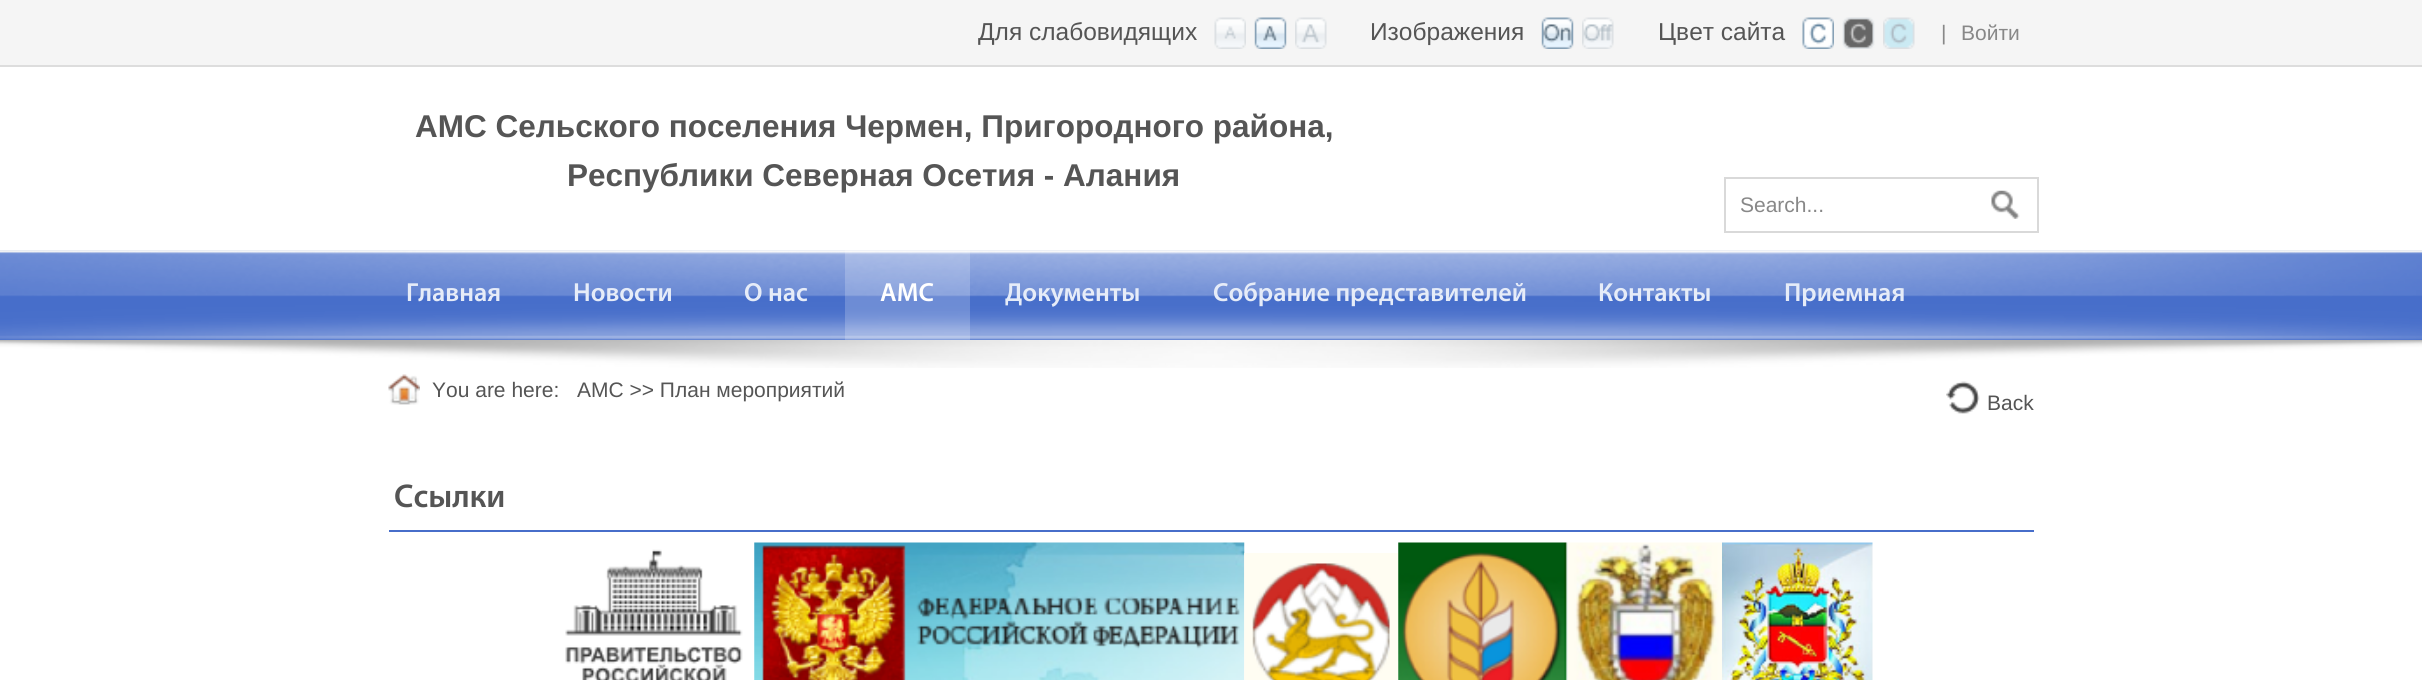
import math
import cairo

surface = cairo.ImageSurface(cairo.FORMAT_RGB24, 2422, 680)
cr = cairo.Context(surface)
options = cairo.FontOptions()
options.set_hint_metrics(cairo.HINT_METRICS_OFF)
options.set_hint_style(cairo.HINT_STYLE_NONE)
cr.set_font_options(options)
cr.set_miter_limit(4)


def rgb(code):
    cr.set_source_rgb(*(v / 255 for v in bytes.fromhex(code[-6:])))


def image(path, x, y, w, h):
    cr.save()
    cr.set_source_surface(cairo.ImageSurface.create_from_png(path), x, y)
    cr.rectangle(x, y, w, h)
    cr.fill()
    cr.restore()


rgb("#ffffff")
cr.paint()
rgb("#f5f5f5")
cr.rectangle(0, 0, 2422, 65)
cr.fill()
rgb("#dddddd")
cr.rectangle(0, 65, 2422, 2)
cr.fill()
image("img/1.png", 1214, 17, 32, 32)
image("img/2.png", 1254, 17, 33, 32)
image("img/3.png", 1295, 17, 32, 32)
image("img/4.png", 1541, 17, 33, 32)
image("img/5.png", 1582, 17, 32, 32)
image("img/6.png", 1802, 17, 32, 32)
image("img/7.png", 1842, 17, 33, 32)
image("img/8.png", 1883, 17, 32, 32)
cr.rectangle(1725, 178, 313, 54)
rgb("#d9d9d9")
cr.stroke()
image("img/9.png", 1991, 190, 29, 29)
rgb("#476eca")
cr.rectangle(0, 250, 2422, 90)
cr.fill()
image("img/10.png", 0, 250, 2422, 90)
cr.set_source_rgba(1, 1, 1, 0.2)
cr.rectangle(845, 250, 125, 90)
cr.fill()
image("img/11.png", 0, 340, 2422, 28)
image("img/12.png", 388, 374, 32, 31)
image("img/13.png", 1946, 381, 34, 33)
rgb("#476eca")
cr.rectangle(389, 530, 1645, 2)
cr.fill()
image("img/14.png", 565, 549, 178, 131)
image("img/15.png", 754, 542, 491, 138)
image("img/16.png", 1244, 553, 154, 127)
image("img/17.png", 1398, 542, 170, 138)
image("img/18.png", 1568, 542, 154, 138)
image("img/19.png", 1722, 542, 151, 138)
cr.select_font_face("Liberation Sans")
cr.set_font_size(24.5)
rgb("#555555")
for x, y, s in [
    (978, 40, "Для слабовидящих"),
    (1370, 40, "Изображения"),
    (1658, 40, "Цвет сайта"),
]:
    cr.move_to(x, y)
    cr.show_text(s)
cr.set_font_size(21)
rgb("#888888")
cr.move_to(1941, 40)
cr.show_text("|")
cr.move_to(1961, 40)
cr.show_text("Войти")
cr.select_font_face("Liberation Sans", cairo.FONT_SLANT_NORMAL, cairo.FONT_WEIGHT_BOLD)
cr.set_font_size(31.5)
rgb("#555555")
cr.move_to(415, 137)
cr.show_text("АМС Сельского поселения Чермен, Пригородного района,")
cr.move_to(567, 186)
cr.show_text("Республики Северная Осетия - Алания")
cr.select_font_face("Liberation Sans")
cr.set_font_size(21)
rgb("#888888")
cr.move_to(1740, 212)
cr.show_text("Search...")
cr.select_font_face("Myriad SemiBold")
cr.set_font_size(26.25)
rgb("#e6ecf8")
for x, y, s in [
    (406, 301, "Главная"),
    (573, 301, "Новости"),
    (744, 301, "О нас"),
]:
    cr.move_to(x, y)
    cr.show_text(s)
rgb("#ffffff")
cr.move_to(880, 301)
cr.show_text("АМС")
rgb("#e6ecf8")
for x, y, s in [
    (1005, 301, "Документы"),
    (1213, 301, "Собрание представителей"),
    (1598, 301, "Контакты"),
    (1784, 301, "Приемная"),
]:
    cr.move_to(x, y)
    cr.show_text(s)
cr.select_font_face("Liberation Sans")
cr.set_font_size(21)
rgb("#555555")
for x, y, s in [
    (432, 397, "You are here:"),
    (577, 397, "АМС >> План мероприятий"),
    (1987, 410, "Back"),
]:
    cr.move_to(x, y)
    cr.show_text(s)
cr.select_font_face("Myriad SemiBold")
cr.set_font_size(33)
cr.move_to(394, 507)
cr.show_text("Ссылки")
surface.write_to_png("page.png")
